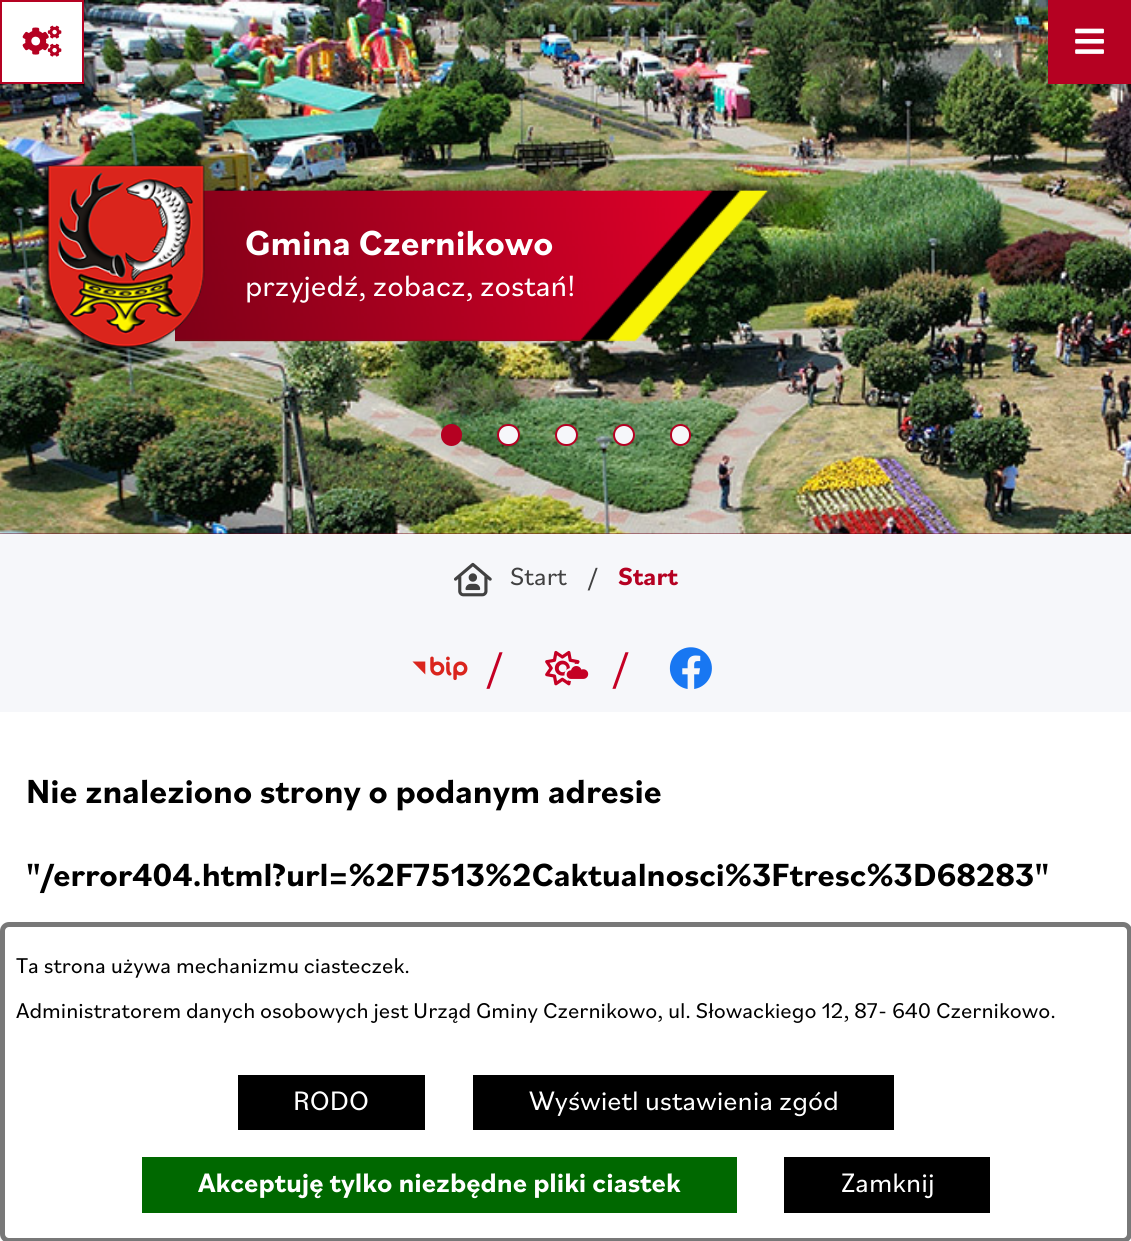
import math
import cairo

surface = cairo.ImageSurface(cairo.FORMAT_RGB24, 1131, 1241)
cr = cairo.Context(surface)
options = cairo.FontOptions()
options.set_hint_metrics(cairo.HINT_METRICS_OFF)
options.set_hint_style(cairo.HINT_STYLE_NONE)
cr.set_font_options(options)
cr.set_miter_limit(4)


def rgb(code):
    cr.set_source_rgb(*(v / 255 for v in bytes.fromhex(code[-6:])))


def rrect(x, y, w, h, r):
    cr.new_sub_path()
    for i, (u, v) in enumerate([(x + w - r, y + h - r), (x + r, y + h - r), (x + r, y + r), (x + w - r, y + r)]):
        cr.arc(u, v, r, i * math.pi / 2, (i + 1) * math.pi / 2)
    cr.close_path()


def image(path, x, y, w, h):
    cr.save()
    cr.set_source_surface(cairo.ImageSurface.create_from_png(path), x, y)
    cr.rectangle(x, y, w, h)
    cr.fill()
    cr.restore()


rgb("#ffffff")
cr.paint()
rgb("#6f0015")
cr.rectangle(0, 533, 1131, 1)
cr.fill()
image("img/2.png", 0, 0, 1131, 534)
rgb("#b50122")
cr.rectangle(1048, 0, 83, 84)
cr.fill()
image("img/1.png", 1075, 28, 29, 26)
rrect(442, 425, 19, 20, 9.5)
cr.fill_preserve()
cr.stroke()
rgb("#f6f7fa")
rrect(498, 425, 21, 20, 10)
cr.fill_preserve()
rgb("#b50122")
cr.stroke()
rgb("#f6f7fa")
rrect(556, 425, 21, 20, 10)
cr.fill_preserve()
rgb("#b50122")
cr.stroke()
rgb("#f6f7fa")
cr.arc(624, 435, 10, 0, 2 * math.pi)
cr.fill_preserve()
rgb("#b50122")
cr.stroke()
rgb("#f6f7fa")
rrect(671, 425, 19, 20, 9.5)
cr.fill_preserve()
rgb("#b50122")
cr.stroke()
image("img/4.png", 175, 190, 594, 152)
image("img/3.png", 40, 164, 165, 189)
rgb("#f6f7fa")
cr.rectangle(0, 534, 1131, 178)
cr.fill()
image("img/5.png", 454, 562, 38, 35)
rgb("#ffffff")
cr.rectangle(1, 1, 82, 82)
cr.fill_preserve()
rgb("#b50122")
cr.stroke()
image("img/6.png", 22, 25, 40, 32)
image("img/7.png", 412, 656, 56, 25)
image("img/8.png", 545, 650, 44, 36)
image("img/9.png", 669, 647, 43, 42)
rrect(2.5, 924.5, 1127, 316, 6.5)
rgb("#787878")
cr.set_line_width(5)
cr.stroke()
for x, y, w, h, color in [
    (238, 1075, 187, 55, "#000000"),
    (473, 1075, 421, 55, "#000000"),
    (142, 1157, 595, 56, "#006800"),
    (784, 1157, 206, 56, "#000000"),
]:
    rgb(color)
    cr.rectangle(x, y, w, h)
    cr.fill()
cr.select_font_face("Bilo", cairo.FONT_SLANT_NORMAL, cairo.FONT_WEIGHT_BOLD)
cr.set_font_size(36.5)
rgb("#ffffff")
cr.move_to(245, 255)
cr.show_text("Gmina Czernikowo")
cr.select_font_face("Bilo")
cr.set_font_size(30.75)
cr.move_to(245, 296)
cr.show_text("przyjedź, zobacz, zostań!")
cr.set_font_size(26)
rgb("#414141")
cr.move_to(510, 585)
cr.show_text("Start")
cr.move_to(588, 585)
cr.show_text("/")
cr.select_font_face("Bilo", cairo.FONT_SLANT_NORMAL, cairo.FONT_WEIGHT_BOLD)
rgb("#b50122")
cr.move_to(618, 585)
cr.show_text("Start")
cr.select_font_face("Bilo")
cr.set_font_size(42)
rgb("#c50024")
cr.move_to(487, 680)
cr.show_text("/")
cr.move_to(613, 680)
cr.show_text("/")
cr.select_font_face("Bilo", cairo.FONT_SLANT_NORMAL, cairo.FONT_WEIGHT_BOLD)
cr.set_font_size(35)
rgb("#000000")
cr.move_to(26, 803)
cr.show_text("Nie znaleziono strony o podanym adresie")
cr.set_font_size(33.6)
cr.move_to(26, 886)
cr.show_text("\"/error404.html?url=%2F7513%2Caktualnosci%3Ftresc%3D68283\"")
cr.select_font_face("Bilo")
cr.set_font_size(22.4)
cr.move_to(16, 973)
cr.show_text("Ta strona używa mechanizmu ciasteczek.")
cr.move_to(16, 1018)
cr.show_text("Administratorem danych osobowych jest Urząd Gminy Czernikowo, ul. Słowackiego 12, 87- 640 Czernikowo.")
cr.set_font_size(28)
rgb("#ffffff")
cr.move_to(293, 1110)
cr.show_text("RODO")
cr.move_to(529, 1110)
cr.show_text("Wyświetl ustawienia zgód")
cr.select_font_face("Bilo", cairo.FONT_SLANT_NORMAL, cairo.FONT_WEIGHT_BOLD)
cr.move_to(198, 1192)
cr.show_text("Akceptuję tylko niezbędne pliki ciastek")
cr.select_font_face("Bilo")
cr.move_to(841, 1192)
cr.show_text("Zamknij")
surface.write_to_png("page.png")
